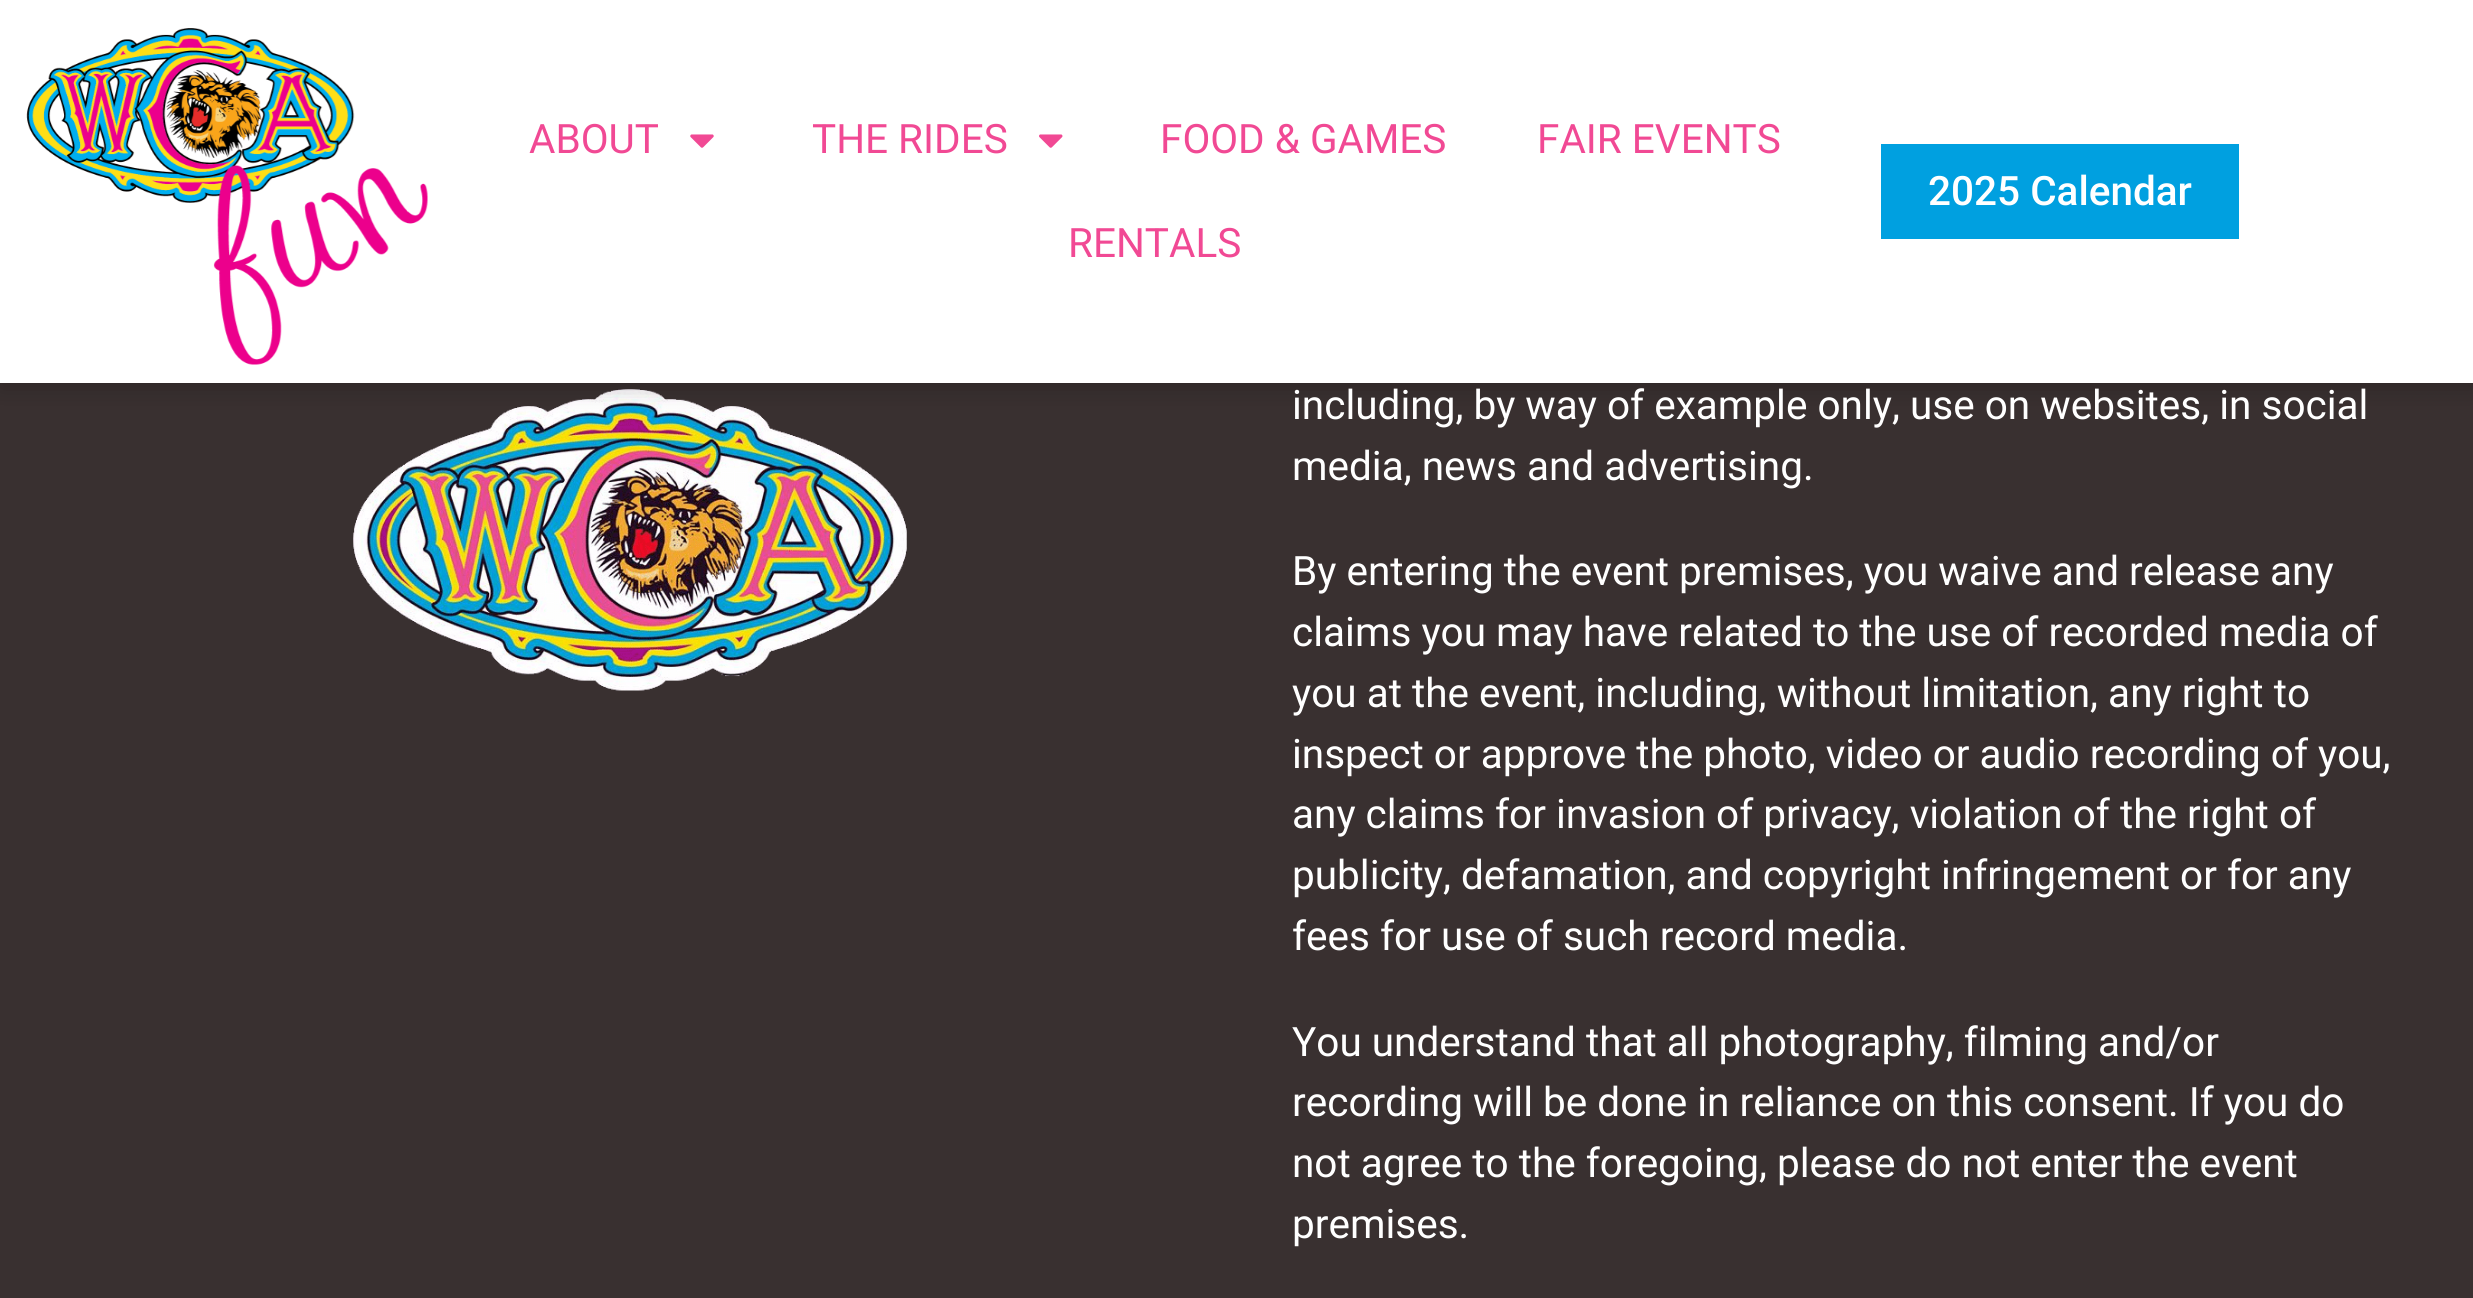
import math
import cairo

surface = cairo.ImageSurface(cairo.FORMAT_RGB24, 2473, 1298)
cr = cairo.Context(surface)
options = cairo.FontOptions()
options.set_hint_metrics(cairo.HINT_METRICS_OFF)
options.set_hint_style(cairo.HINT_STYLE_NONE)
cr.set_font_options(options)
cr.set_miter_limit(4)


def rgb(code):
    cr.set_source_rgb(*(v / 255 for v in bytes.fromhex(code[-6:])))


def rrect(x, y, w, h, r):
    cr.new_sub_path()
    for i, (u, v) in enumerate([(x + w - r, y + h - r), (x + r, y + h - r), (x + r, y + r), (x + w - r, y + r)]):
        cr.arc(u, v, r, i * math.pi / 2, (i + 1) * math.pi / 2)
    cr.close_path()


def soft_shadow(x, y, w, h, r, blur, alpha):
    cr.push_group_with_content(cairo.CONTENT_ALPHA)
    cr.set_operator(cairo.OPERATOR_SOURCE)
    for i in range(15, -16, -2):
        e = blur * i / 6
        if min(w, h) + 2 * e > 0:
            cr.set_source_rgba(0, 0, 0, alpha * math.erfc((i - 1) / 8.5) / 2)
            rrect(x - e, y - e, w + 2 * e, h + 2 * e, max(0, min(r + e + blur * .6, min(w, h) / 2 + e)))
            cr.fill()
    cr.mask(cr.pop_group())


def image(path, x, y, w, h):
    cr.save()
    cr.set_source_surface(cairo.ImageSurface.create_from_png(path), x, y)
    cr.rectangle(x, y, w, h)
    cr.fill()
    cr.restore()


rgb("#393030")
cr.paint()
image("img/4.png", 353, 389, 554, 302)
rgb("#000000")
soft_shadow(0, 7, 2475, 382, 0, 11, 0.2)
rgb("#ffffff")
cr.rectangle(0, 0, 2473, 383)
cr.fill()
image("img/1.png", 26, 28, 402, 337)
image("img/2.png", 690, 134, 24, 14)
image("img/3.png", 1039, 134, 24, 14)
rgb("#00a0e0")
cr.rectangle(1881, 144, 358, 95)
cr.fill()
cr.select_font_face("Roboto")
cr.set_font_size(40.5)
rgb("#f14994")
for x, y, s in [
    (529, 153, "ABOUT"),
    (812, 153, "THE RIDES"),
    (1160, 153, "FOOD & GAMES"),
    (1537, 153, "FAIR EVENTS"),
    (1068, 257, "RENTALS"),
]:
    cr.move_to(x, y)
    cr.show_text(s)
cr.select_font_face("Roboto Medium")
rgb("#ffffff")
cr.move_to(1928, 205)
cr.show_text("2025 Calendar")
cr.select_font_face("Roboto")
for x, y, s in [
    (1292, 419, "including, by way of example only, use on websites, in social"),
    (1292, 480, "media, news and advertising."),
    (1292, 585, "By entering the event premises, you waive and release any"),
    (1292, 646, "claims you may have related to the use of recorded media of"),
    (1292, 707, "you at the event, including, without limitation, any right to"),
    (1292, 768, "inspect or approve the photo, video or audio recording of you,"),
    (1292, 828, "any claims for invasion of privacy, violation of the right of"),
    (1292, 889, "publicity, defamation, and copyright infringement or for any"),
    (1292, 950, "fees for use of such record media."),
    (1292, 1056, "You understand that all photography, filming and/or"),
    (1292, 1116, "recording will be done in reliance on this consent. If you do"),
    (1292, 1177, "not agree to the foregoing, please do not enter the event"),
    (1292, 1238, "premises."),
]:
    cr.move_to(x, y)
    cr.show_text(s)
surface.write_to_png("page.png")
